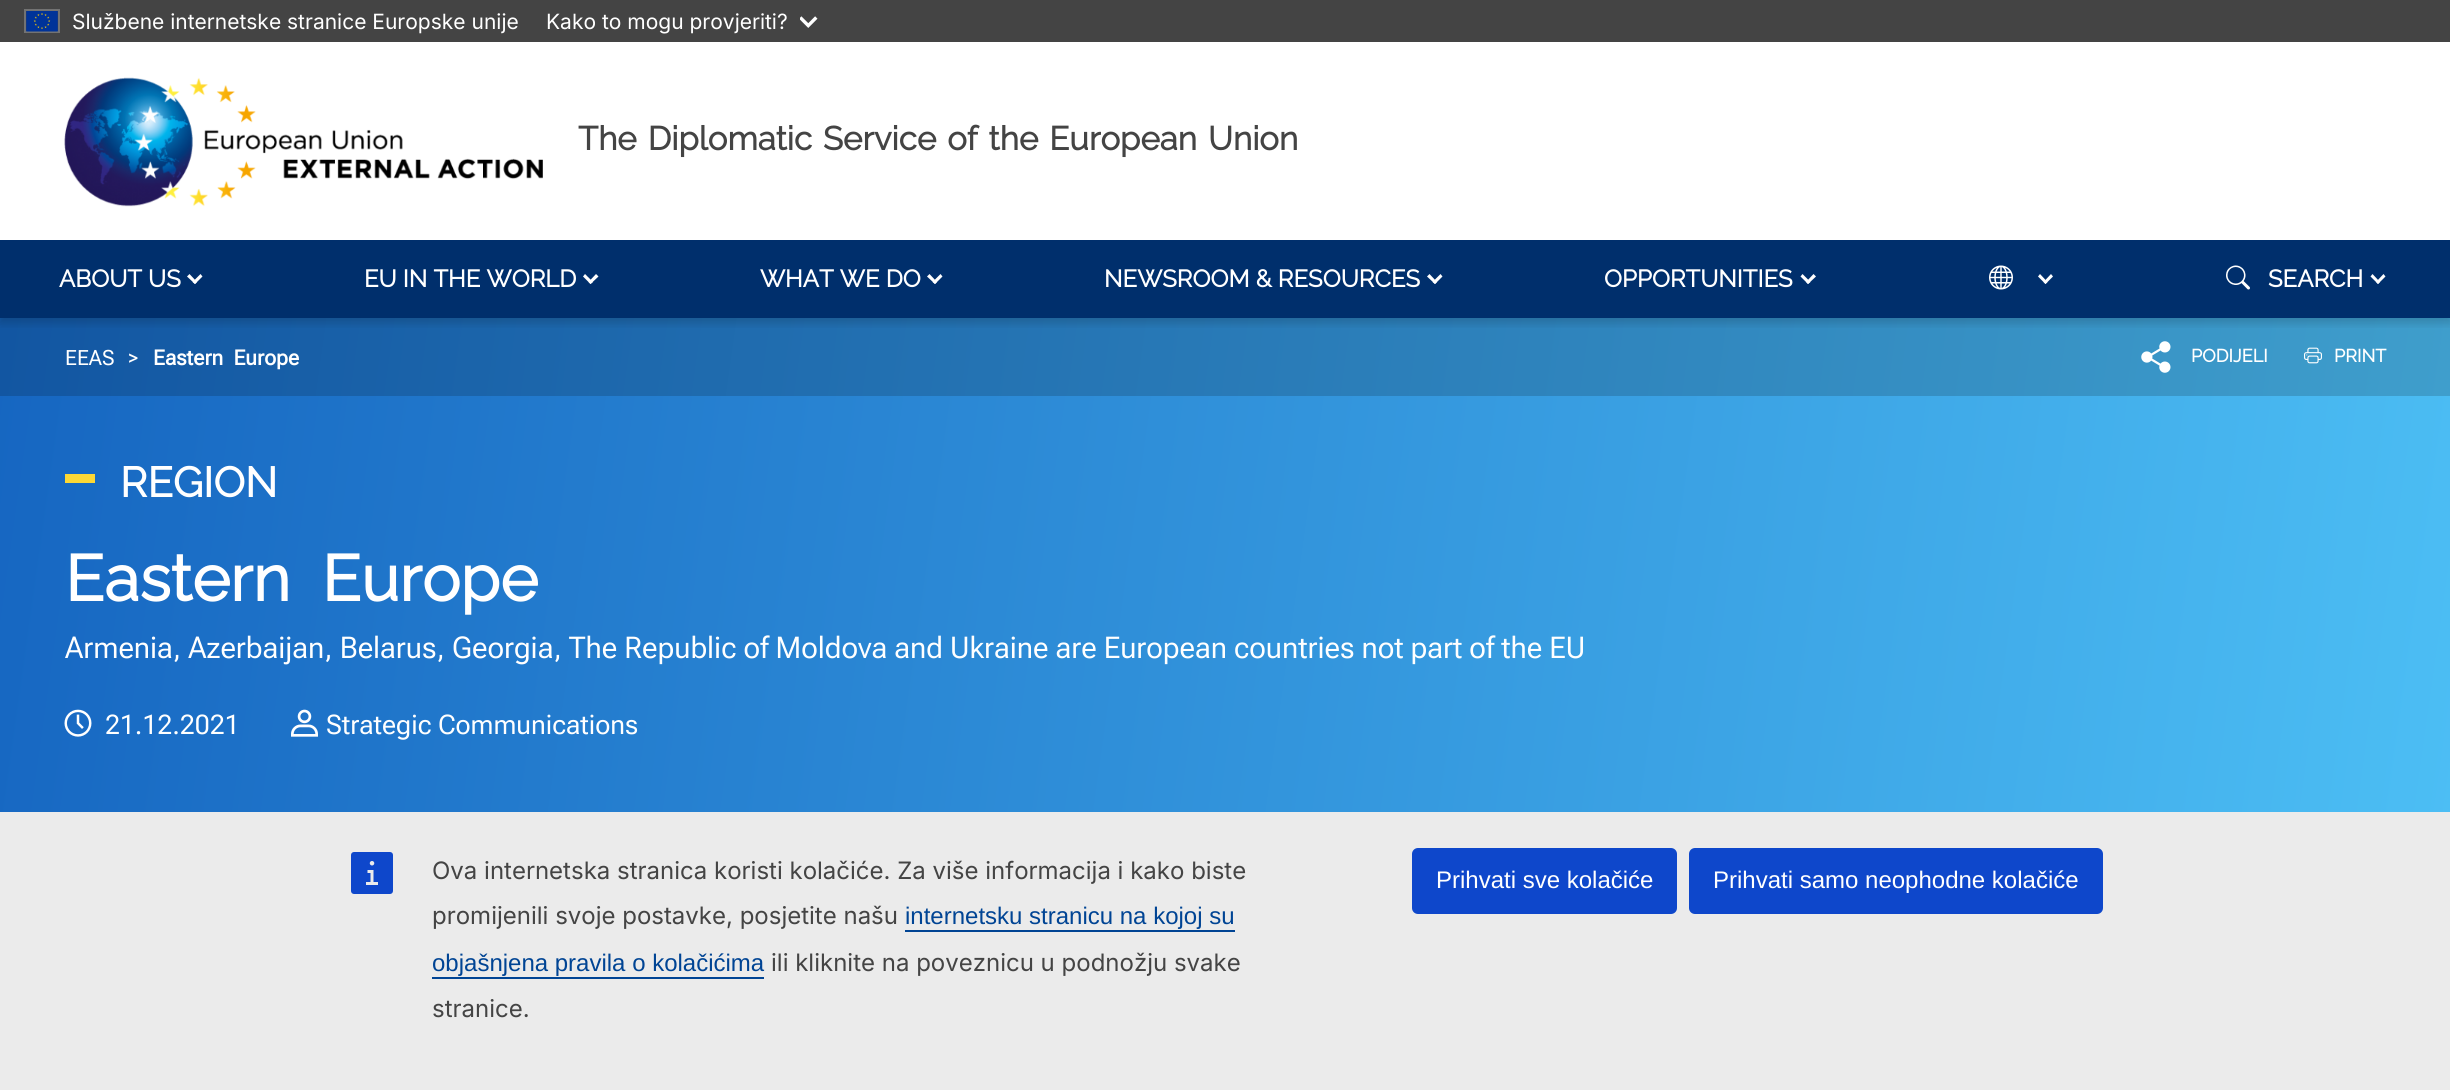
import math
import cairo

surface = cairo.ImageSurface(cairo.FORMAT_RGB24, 2450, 1090)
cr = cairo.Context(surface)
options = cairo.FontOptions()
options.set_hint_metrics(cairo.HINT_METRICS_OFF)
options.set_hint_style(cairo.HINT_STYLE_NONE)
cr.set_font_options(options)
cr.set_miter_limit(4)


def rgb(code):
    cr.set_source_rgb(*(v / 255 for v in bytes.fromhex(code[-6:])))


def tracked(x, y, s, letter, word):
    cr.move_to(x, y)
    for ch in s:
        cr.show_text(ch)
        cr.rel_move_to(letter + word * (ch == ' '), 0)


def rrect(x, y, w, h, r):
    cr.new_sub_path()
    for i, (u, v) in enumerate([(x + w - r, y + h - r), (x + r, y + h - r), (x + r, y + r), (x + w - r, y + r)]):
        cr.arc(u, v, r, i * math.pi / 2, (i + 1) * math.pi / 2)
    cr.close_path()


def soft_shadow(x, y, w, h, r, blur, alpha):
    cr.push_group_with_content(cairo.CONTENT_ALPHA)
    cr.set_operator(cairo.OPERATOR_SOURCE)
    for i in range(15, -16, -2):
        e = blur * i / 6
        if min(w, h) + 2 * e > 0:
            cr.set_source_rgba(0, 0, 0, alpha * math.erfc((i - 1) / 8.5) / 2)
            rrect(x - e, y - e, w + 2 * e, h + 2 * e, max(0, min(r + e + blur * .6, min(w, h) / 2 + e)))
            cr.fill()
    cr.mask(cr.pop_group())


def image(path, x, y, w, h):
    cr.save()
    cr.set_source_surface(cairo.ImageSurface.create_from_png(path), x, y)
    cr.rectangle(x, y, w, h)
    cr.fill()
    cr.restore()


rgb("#ffffff")
cr.paint()
rgb("#444444")
cr.rectangle(0, 0, 2450, 42)
cr.fill()
cr.rectangle(25, 10, 34, 22)
rgb("#737373")
cr.stroke()
image("img/1.png", 26, 11, 32, 21)
image("img/2.png", 800, 16, 18, 12)
gradient = cairo.LinearGradient(-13, 409, 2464, 757)
gradient.add_color_stop_rgba(0, 0.071, 0.337, 0.635, 1)
gradient.add_color_stop_rgba(1, 0.251, 0.627, 0.804, 1)
cr.set_source(gradient)
cr.rectangle(0, 318, 2450, 78)
cr.fill()
cr.save()
cr.rectangle(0, 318, 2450, 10)
cr.clip()
rgb("#000000")
soft_shadow(0, 47, 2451, 276, 0, 4.5, 0.16)
cr.restore()
image("img/3.png", 64, 77, 479, 130)
rgb("#002f6c")
cr.rectangle(0, 240, 2450, 78)
cr.fill()
rgb("#ffffff")
cr.new_path()
cr.move_to(192.5, 282)
cr.line_to(200.5, 274)
cr.line_to(202.5, 276.5)
cr.line_to(195, 284)
cr.close_path()
cr.fill()
cr.new_path()
cr.move_to(187, 276.5)
cr.line_to(189.5, 274)
cr.line_to(197, 282)
cr.line_to(195, 284)
cr.close_path()
cr.fill()
cr.new_path()
cr.move_to(588.5, 282)
cr.line_to(596, 274)
cr.line_to(598.5, 276.5)
cr.line_to(590.5, 284)
cr.close_path()
cr.fill()
cr.new_path()
cr.move_to(583, 276.5)
cr.line_to(585, 274)
cr.line_to(593, 282)
cr.line_to(590.5, 284)
cr.close_path()
cr.fill()
cr.new_path()
cr.move_to(932.5, 282)
cr.line_to(940.5, 274)
cr.line_to(942.5, 276.5)
cr.line_to(935, 284)
cr.close_path()
cr.fill()
cr.new_path()
cr.move_to(927, 276.5)
cr.line_to(929.5, 274)
cr.line_to(937, 282)
cr.line_to(935, 284)
cr.close_path()
cr.fill()
cr.new_path()
cr.move_to(1432.5, 282)
cr.line_to(1440.5, 274)
cr.line_to(1442.5, 276.5)
cr.line_to(1435, 284)
cr.close_path()
cr.fill()
cr.new_path()
cr.move_to(1427, 276.5)
cr.line_to(1429.5, 274)
cr.line_to(1437, 282)
cr.line_to(1435, 284)
cr.close_path()
cr.fill()
cr.new_path()
cr.move_to(1806, 282)
cr.line_to(1813.5, 274)
cr.line_to(1816, 276.5)
cr.line_to(1808, 284)
cr.close_path()
cr.fill()
cr.new_path()
cr.move_to(1800.5, 276.5)
cr.line_to(1802.5, 274)
cr.line_to(1810.5, 282)
cr.line_to(1808, 284)
cr.close_path()
cr.fill()
image("img/4.png", 1989, 265, 24, 25)
cr.new_path()
cr.move_to(2043.5, 282)
cr.line_to(2051, 274)
cr.line_to(2053, 276.5)
cr.line_to(2045.5, 284)
cr.close_path()
cr.fill()
cr.new_path()
cr.move_to(2038, 276.5)
cr.line_to(2040, 274)
cr.line_to(2047.5, 282)
cr.line_to(2045.5, 284)
cr.close_path()
cr.fill()
image("img/5.png", 2226, 265, 24, 25)
cr.new_path()
cr.move_to(2376, 282)
cr.line_to(2383.5, 274)
cr.line_to(2385.5, 276.5)
cr.line_to(2378, 284)
cr.close_path()
cr.fill()
cr.new_path()
cr.move_to(2370.5, 276.5)
cr.line_to(2372.5, 274)
cr.line_to(2380, 282)
cr.line_to(2378, 284)
cr.close_path()
cr.fill()
gradient = cairo.LinearGradient(-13, 409, 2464, 757)
gradient.add_color_stop_rgba(0, 0.086, 0.4, 0.757, 1)
gradient.add_color_stop_rgba(1, 0.298, 0.745, 0.957, 1)
cr.set_source(gradient)
cr.rectangle(0, 396, 2450, 416)
cr.fill()
image("img/6.png", 2141, 341, 30, 32)
image("img/7.png", 2304, 347, 18, 17)
rgb("#fdd835")
cr.rectangle(65, 474, 30, 9)
cr.fill()
image("img/8.png", 64, 709, 28, 28)
image("img/9.png", 291, 709, 27, 28)
rgb("#ebebeb")
cr.rectangle(0, 812, 2450, 278)
cr.fill()
image("img/10.png", 351, 852, 42, 42)
rgb("#004494")
cr.rectangle(905, 930, 330, 2)
cr.fill()
cr.rectangle(432, 977, 332, 2)
cr.fill()
rgb("#0e47cb")
rrect(1412, 848, 265, 66, 6)
cr.fill()
rrect(1689, 848, 414, 66, 6)
cr.fill()
cr.select_font_face("Inter")
cr.set_font_size(21)
rgb("#ffffff")
cr.move_to(72, 29)
cr.show_text("Službene internetske stranice Europske unije")
cr.move_to(546, 29)
cr.show_text("Kako to mogu provjeriti?")
cr.select_font_face("Raleway", cairo.FONT_SLANT_NORMAL, cairo.FONT_WEIGHT_BOLD)
cr.set_font_size(33)
rgb("#444444")
tracked(578, 150, "The Diplomatic Service of the European Union", 0, 2.5)
cr.set_font_size(24)
rgb("#ffffff")
for x, y, s in [
    (59, 287, "ABOUT US"),
    (364, 287, "EU IN THE WORLD"),
    (760, 287, "WHAT WE DO"),
    (1104, 287, "NEWSROOM & RESOURCES"),
    (1604, 287, "OPPORTUNITIES"),
    (2268, 287, "SEARCH"),
]:
    cr.move_to(x, y)
    cr.show_text(s)
cr.select_font_face("Roboto Flex")
cr.set_font_size(21)
cr.move_to(65, 365)
cr.show_text("EEAS")
cr.move_to(128, 365)
cr.show_text(">")
cr.select_font_face("Roboto Flex", cairo.FONT_SLANT_NORMAL, cairo.FONT_WEIGHT_BOLD)
tracked(153, 365, "Eastern Europe", 0, 5)
cr.select_font_face("Raleway", cairo.FONT_SLANT_NORMAL, cairo.FONT_WEIGHT_BOLD)
cr.set_font_size(18)
cr.move_to(2191, 362)
cr.show_text("PODIJELI")
cr.move_to(2334, 362)
cr.show_text("PRINT")
cr.set_font_size(42)
cr.move_to(120, 497)
cr.show_text("REGION")
cr.set_font_size(64.5)
tracked(65, 601, "Eastern Europe", 0, 15)
cr.select_font_face("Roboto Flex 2")
cr.set_font_size(30)
cr.move_to(65, 658)
cr.show_text("Armenia, Azerbaijan, Belarus, Georgia, The Republic of Moldova and Ukraine are European countries not part of the EU")
cr.select_font_face("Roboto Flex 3")
cr.set_font_size(27)
cr.move_to(105, 734)
cr.show_text("21.12.2021")
cr.move_to(326, 734)
cr.show_text("Strategic Communications")
cr.select_font_face("Inter")
cr.set_font_size(24)
rgb("#444444")
cr.move_to(432, 879)
cr.show_text("Ova internetska stranica koristi kolačiće. Za više informacija i kako biste")
cr.move_to(432, 924)
cr.show_text("promijenili svoje postavke, posjetite našu")
cr.select_font_face("Liberation Sans")
rgb("#004494")
cr.move_to(905, 924)
cr.show_text("internetsku stranicu na kojoj su")
cr.move_to(432, 971)
cr.show_text("objašnjena pravila o kolačićima")
cr.select_font_face("Inter")
rgb("#444444")
cr.move_to(771, 971)
cr.show_text("ili kliknite na poveznicu u podnožju svake")
cr.move_to(432, 1017)
cr.show_text("stranice.")
cr.select_font_face("Liberation Sans")
rgb("#ffffff")
cr.move_to(1436, 888)
cr.show_text("Prihvati sve kolačiće")
cr.move_to(1713, 888)
cr.show_text("Prihvati samo neophodne kolačiće")
surface.write_to_png("page.png")
